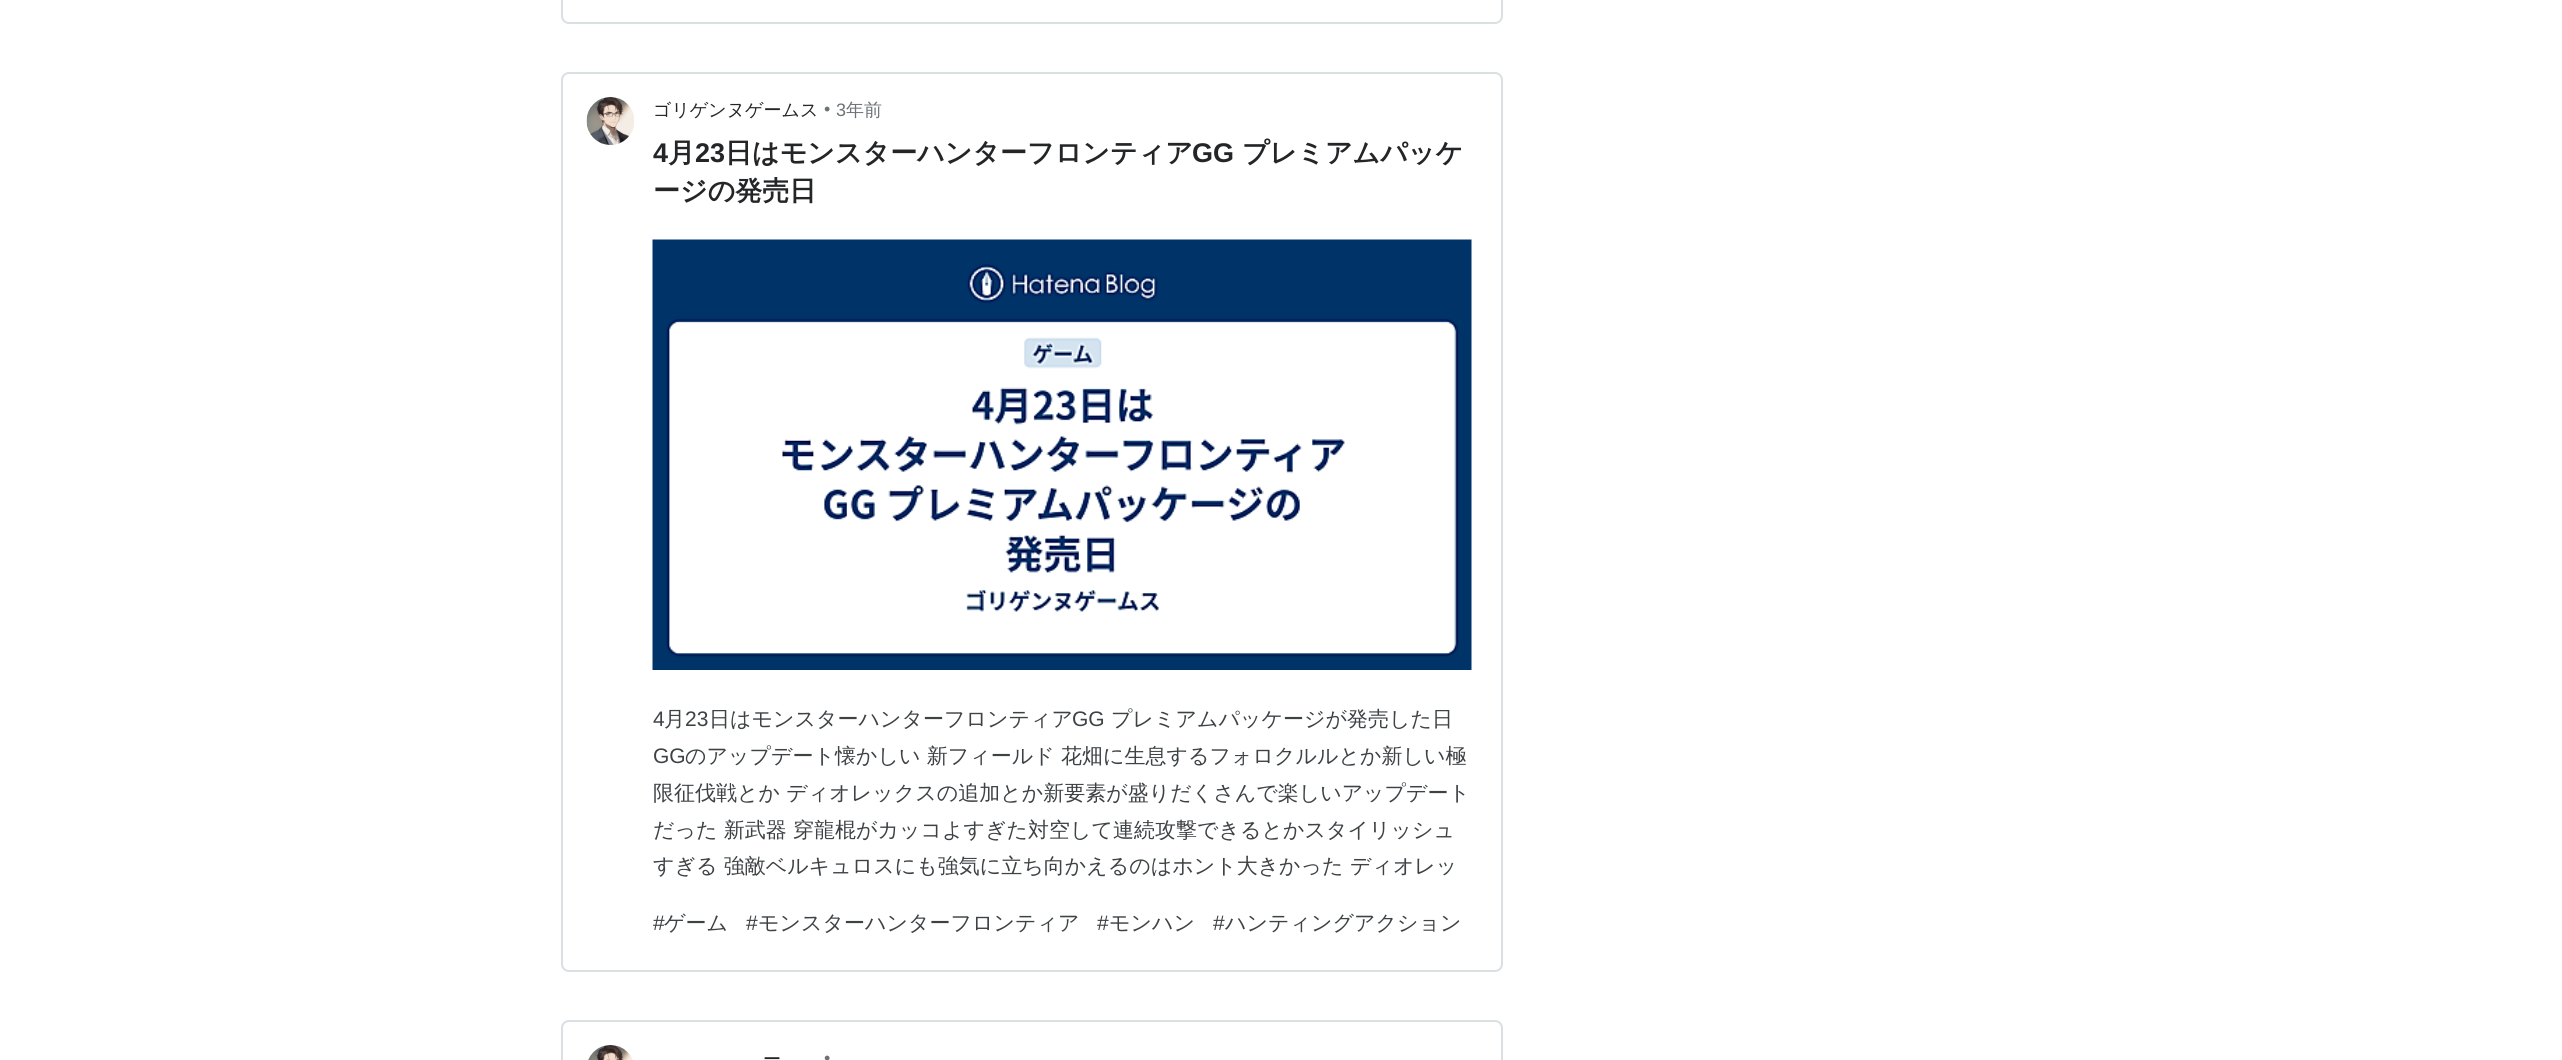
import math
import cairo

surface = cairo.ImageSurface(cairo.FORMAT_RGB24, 2562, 1060)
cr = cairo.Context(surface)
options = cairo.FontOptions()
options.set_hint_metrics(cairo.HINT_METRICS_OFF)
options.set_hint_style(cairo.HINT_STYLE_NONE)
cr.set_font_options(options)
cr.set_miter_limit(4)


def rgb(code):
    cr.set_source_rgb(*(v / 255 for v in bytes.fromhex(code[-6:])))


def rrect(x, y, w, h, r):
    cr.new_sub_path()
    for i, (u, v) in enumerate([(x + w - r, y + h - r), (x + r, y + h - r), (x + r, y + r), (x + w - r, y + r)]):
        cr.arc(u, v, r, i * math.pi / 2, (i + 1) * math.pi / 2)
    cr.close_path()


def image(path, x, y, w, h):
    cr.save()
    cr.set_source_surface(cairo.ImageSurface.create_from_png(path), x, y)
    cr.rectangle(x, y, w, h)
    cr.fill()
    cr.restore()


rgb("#ffffff")
cr.paint()
rrect(562, -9, 940, 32, 7)
rgb("#dadfe2")
cr.stroke()
rrect(562, 73, 940, 898, 7)
cr.stroke()
image("img/1.png", 586, 97, 48, 48)
image("img/2.png", 652, 239, 820, 431)
rrect(562, 1021, 940, 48, 7)
cr.stroke()
image("img/3.png", 588, 1045, 45, 15)
cr.select_font_face("WenQuanYi Zen Hei Medium")
cr.set_font_size(18)
rgb("#242527")
cr.move_to(653, 116)
cr.show_text("ゴリゲンヌゲームス")
cr.select_font_face("Liberation Sans")
rgb("#6b7377")
cr.move_to(824, 115)
cr.show_text("•")
cr.move_to(836, 116)
cr.show_text("3")
cr.select_font_face("WenQuanYi Zen Hei Medium")
cr.move_to(846, 116)
cr.show_text("年前")
cr.select_font_face("Liberation Sans", cairo.FONT_SLANT_NORMAL, cairo.FONT_WEIGHT_BOLD)
cr.set_font_size(27)
rgb("#242527")
cr.move_to(653, 162)
cr.show_text("4")
cr.select_font_face("WenQuanYi Zen Hei", cairo.FONT_SLANT_NORMAL, cairo.FONT_WEIGHT_BOLD)
cr.move_to(668, 162)
cr.show_text("月")
cr.select_font_face("Liberation Sans", cairo.FONT_SLANT_NORMAL, cairo.FONT_WEIGHT_BOLD)
cr.move_to(695, 162)
cr.show_text("23")
cr.select_font_face("WenQuanYi Zen Hei", cairo.FONT_SLANT_NORMAL, cairo.FONT_WEIGHT_BOLD)
cr.move_to(725, 162)
cr.show_text("日はモンスターハンターフロンティア")
cr.select_font_face("Liberation Sans", cairo.FONT_SLANT_NORMAL, cairo.FONT_WEIGHT_BOLD)
cr.move_to(1192, 162)
cr.show_text("GG")
cr.select_font_face("WenQuanYi Zen Hei", cairo.FONT_SLANT_NORMAL, cairo.FONT_WEIGHT_BOLD)
cr.move_to(1242, 162)
cr.show_text("プレミアムパッケ")
cr.move_to(653, 200)
cr.show_text("ージの発売日")
cr.select_font_face("Liberation Sans")
cr.set_font_size(21)
rgb("#3d4245")
cr.move_to(653, 726)
cr.show_text("4")
cr.select_font_face("WenQuanYi Zen Hei Medium")
cr.move_to(664, 726)
cr.show_text("月")
cr.select_font_face("Liberation Sans")
cr.move_to(685, 726)
cr.show_text("23")
cr.select_font_face("WenQuanYi Zen Hei Medium")
cr.move_to(709, 726)
cr.show_text("日はモンスターハンターフロンティア")
cr.select_font_face("Liberation Sans")
cr.move_to(1072, 726)
cr.show_text("GG")
cr.select_font_face("WenQuanYi Zen Hei Medium")
cr.move_to(1111, 726)
cr.show_text("プレミアムパッケージが発売した日")
cr.select_font_face("Liberation Sans")
cr.move_to(653, 763)
cr.show_text("GG")
cr.select_font_face("WenQuanYi Zen Hei Medium")
for x, y, s in [
    (685, 763, "のアップデート懐かしい 新フィールド 花畑に生息するフォロクルルとか新しい極"),
    (653, 800, "限征伐戦とか ディオレックスの追加とか新要素が盛りだくさんで楽しいアップデート"),
    (653, 837, "だった 新武器 穿龍棍がカッコよすぎた対空して連続攻撃できるとかスタイリッシュ"),
    (653, 873, "すぎる 強敵ベルキュロスにも強気に立ち向かえるのはホント大きかった ディオレッ"),
]:
    cr.move_to(x, y)
    cr.show_text(s)
cr.select_font_face("Liberation Sans")
cr.move_to(653, 930)
cr.show_text("#")
cr.select_font_face("WenQuanYi Zen Hei Medium")
cr.move_to(664, 930)
cr.show_text("ゲーム")
cr.select_font_face("Liberation Sans")
cr.move_to(746, 930)
cr.show_text("#")
cr.select_font_face("WenQuanYi Zen Hei Medium")
cr.move_to(758, 930)
cr.show_text("モンスターハンターフロンティア")
cr.select_font_face("Liberation Sans")
cr.move_to(1097, 930)
cr.show_text("#")
cr.select_font_face("WenQuanYi Zen Hei Medium")
cr.move_to(1109, 930)
cr.show_text("モンハン")
cr.select_font_face("Liberation Sans")
cr.move_to(1213, 930)
cr.show_text("#")
cr.select_font_face("WenQuanYi Zen Hei Medium")
cr.move_to(1225, 930)
cr.show_text("ハンティングアクション")
cr.set_font_size(18)
rgb("#242527")
cr.move_to(763, 1065)
cr.show_text("ー")
cr.select_font_face("Liberation Sans")
rgb("#6b7377")
cr.move_to(824, 1064)
cr.show_text("•")
surface.write_to_png("page.png")
